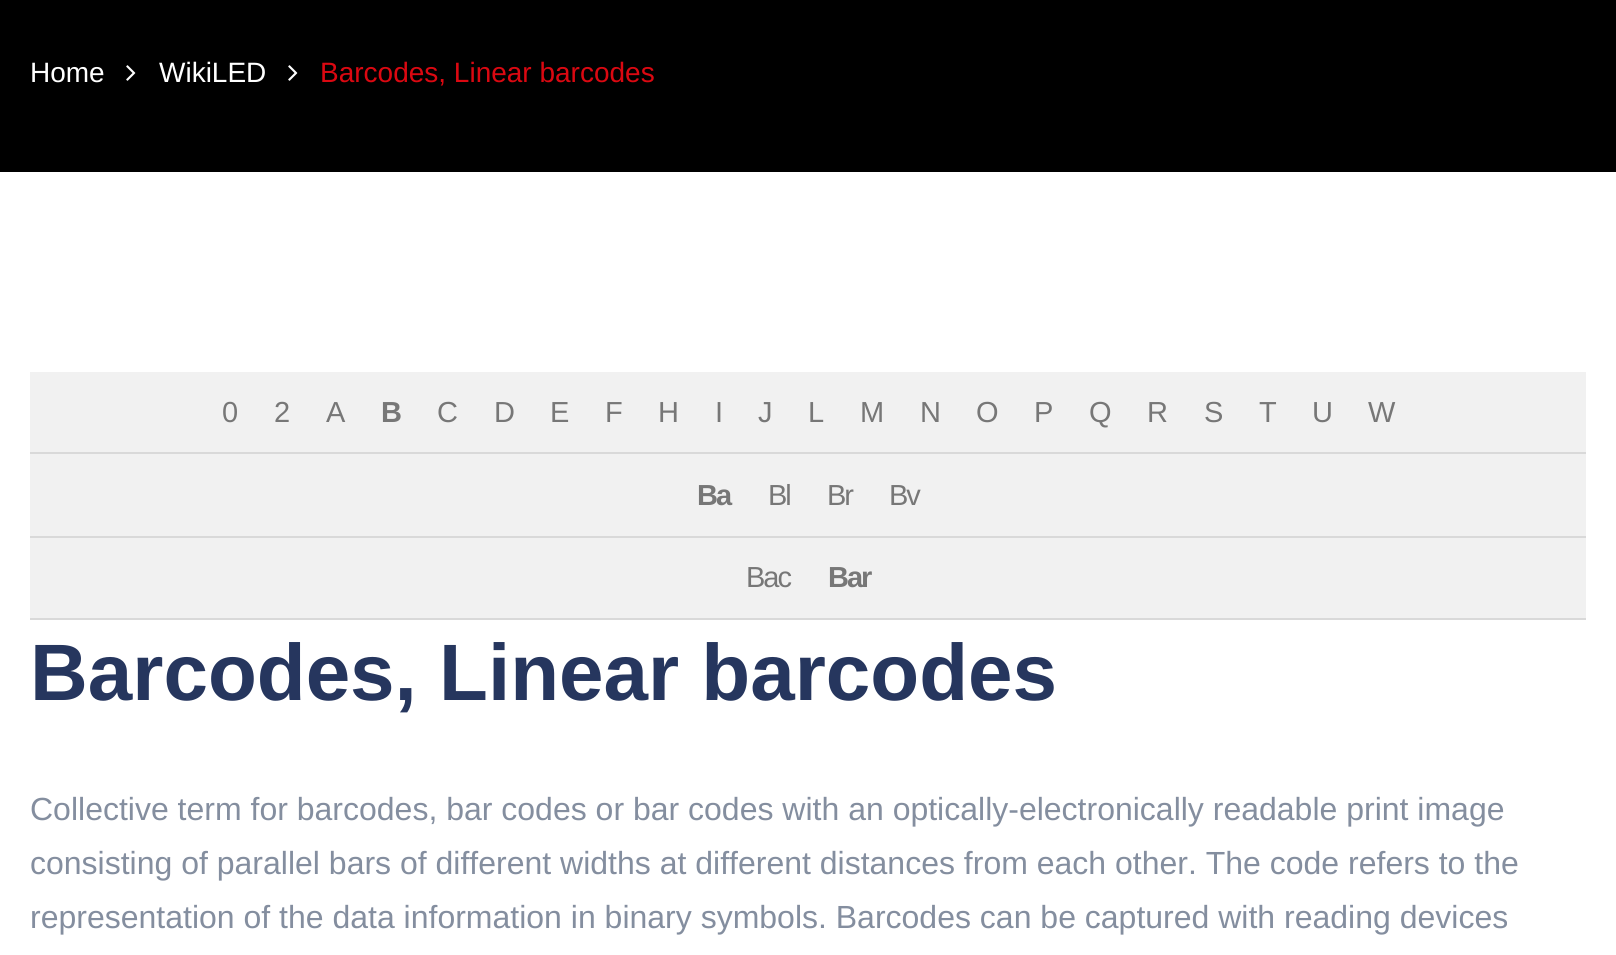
import math
import cairo

surface = cairo.ImageSurface(cairo.FORMAT_RGB24, 1616, 955)
cr = cairo.Context(surface)
options = cairo.FontOptions()
options.set_hint_metrics(cairo.HINT_METRICS_OFF)
options.set_hint_style(cairo.HINT_STYLE_NONE)
cr.set_font_options(options)
cr.set_miter_limit(4)


def rgb(code):
    cr.set_source_rgb(*(v / 255 for v in bytes.fromhex(code[-6:])))


def tracked(x, y, s, letter, word):
    cr.move_to(x, y)
    for ch in s:
        cr.show_text(ch)
        cr.rel_move_to(letter + word * (ch == ' '), 0)


def image(path, x, y, w, h):
    cr.save()
    cr.set_source_surface(cairo.ImageSurface.create_from_png(path), x, y)
    cr.rectangle(x, y, w, h)
    cr.fill()
    cr.restore()


rgb("#ffffff")
cr.paint()
rgb("#000000")
cr.rectangle(0, 0, 1616, 172)
cr.fill()
image("img/1.png", 126, 65, 10, 16)
image("img/1.png", 288, 65, 10, 16)
for x, y, w, h, color in [
    (30, 372, 1556, 80, "#f1f1f1"),
    (30, 452, 1556, 2, "#d9d9d9"),
    (30, 454, 1556, 82, "#f1f1f1"),
    (30, 536, 1556, 2, "#d9d9d9"),
    (30, 538, 1556, 80, "#f1f1f1"),
    (30, 618, 1556, 2, "#d9d9d9"),
]:
    rgb(color)
    cr.rectangle(x, y, w, h)
    cr.fill()
cr.select_font_face("Liberation Sans")
cr.set_font_size(28)
rgb("#ffffff")
cr.move_to(30, 82)
cr.show_text("Home")
cr.move_to(159, 82)
cr.show_text("WikiLED")
rgb("#db0811")
cr.move_to(320, 82)
cr.show_text("Barcodes, Linear barcodes")
cr.set_font_size(29)
rgb("#777777")
for x, y, s in [
    (222, 422, "0"),
    (274, 422, "2"),
    (326, 422, "A"),
]:
    tracked(x, y, s, -2, 0)
cr.select_font_face("Liberation Sans", cairo.FONT_SLANT_NORMAL, cairo.FONT_WEIGHT_BOLD)
tracked(381, 422, "B", -2, 0)
cr.select_font_face("Liberation Sans")
for x, y, s in [
    (437, 422, "C"),
    (494, 422, "D"),
    (550, 422, "E"),
    (605, 422, "F"),
    (658, 422, "H"),
    (715, 422, "I"),
    (758, 422, "J"),
    (808, 422, "L"),
    (860, 422, "M"),
    (920, 422, "N"),
    (976, 422, "O"),
    (1034, 422, "P"),
    (1089, 422, "Q"),
    (1147, 422, "R"),
    (1204, 422, "S"),
    (1259, 422, "T"),
    (1312, 422, "U"),
    (1368, 422, "W"),
]:
    tracked(x, y, s, -2, 0)
cr.select_font_face("Liberation Sans", cairo.FONT_SLANT_NORMAL, cairo.FONT_WEIGHT_BOLD)
tracked(697, 505, "Ba", -2, 0)
cr.select_font_face("Liberation Sans")
for x, y, s in [
    (768, 505, "Bl"),
    (827, 505, "Br"),
    (889, 505, "Bv"),
    (746, 587, "Bac"),
]:
    tracked(x, y, s, -2, 0)
cr.select_font_face("Liberation Sans", cairo.FONT_SLANT_NORMAL, cairo.FONT_WEIGHT_BOLD)
tracked(828, 587, "Bar", -2, 0)
cr.set_font_size(80)
rgb("#26365e")
cr.move_to(30, 700)
cr.show_text("Barcodes, Linear barcodes")
cr.select_font_face("Liberation Sans")
cr.set_font_size(32)
rgb("#848e9f")
for x, y, s in [
    (30, 820, "Collective term for barcodes, bar codes or bar codes with an optically-electronically readable print image"),
    (30, 874, "consisting of parallel bars of different widths at different distances from each other. The code refers to the"),
    (30, 928, "representation of the data information in binary symbols. Barcodes can be captured with reading devices"),
]:
    cr.move_to(x, y)
    cr.show_text(s)
surface.write_to_png("page.png")
